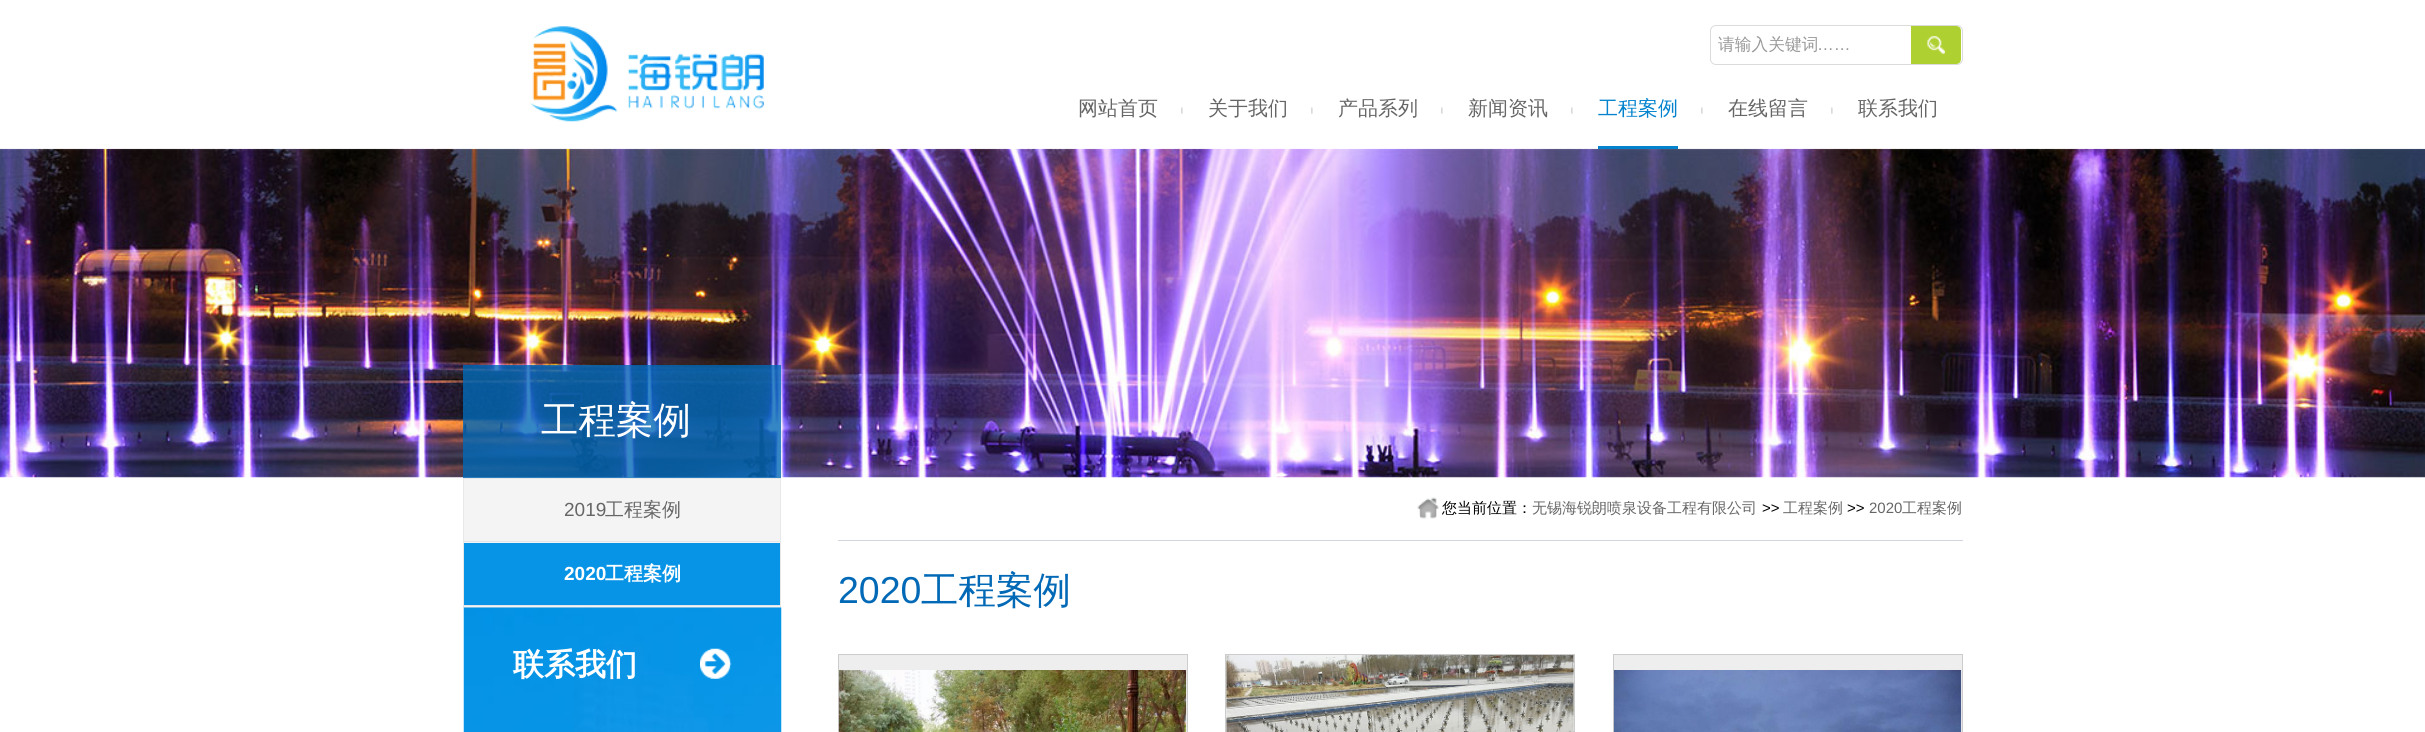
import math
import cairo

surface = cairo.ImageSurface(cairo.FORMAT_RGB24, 2425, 732)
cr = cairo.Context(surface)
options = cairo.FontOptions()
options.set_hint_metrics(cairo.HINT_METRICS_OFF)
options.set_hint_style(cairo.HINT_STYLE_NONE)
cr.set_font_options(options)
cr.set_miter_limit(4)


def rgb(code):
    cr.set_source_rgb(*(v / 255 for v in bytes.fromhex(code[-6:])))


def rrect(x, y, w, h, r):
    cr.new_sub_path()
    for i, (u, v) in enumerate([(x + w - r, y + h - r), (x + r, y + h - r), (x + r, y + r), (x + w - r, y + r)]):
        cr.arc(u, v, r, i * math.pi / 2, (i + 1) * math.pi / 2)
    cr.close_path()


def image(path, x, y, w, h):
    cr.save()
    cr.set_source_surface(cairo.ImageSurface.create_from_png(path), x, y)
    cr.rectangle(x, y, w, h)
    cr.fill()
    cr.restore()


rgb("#ffffff")
cr.paint()
image("img/1.png", 530, 26, 234, 96)
rrect(1710.5, 25.5, 252, 39, 5.5)
rgb("#dbdbdb")
cr.set_line_width(1)
cr.stroke()
rgb("#afd031")
cr.new_path()
cr.move_to(1911, 26)
cr.line_to(1956, 26)
cr.curve_to(1959, 26, 1961, 28, 1961, 31)
cr.line_to(1961, 59)
cr.curve_to(1961, 62, 1959, 64, 1956, 64)
cr.line_to(1911, 64)
cr.close_path()
cr.fill()
image("img/2.png", 1927, 36, 18, 18)
image("img/3.png", 1181, 107, 2, 7)
image("img/3.png", 1311, 107, 2, 7)
image("img/3.png", 1441, 107, 2, 7)
image("img/3.png", 1571, 107, 2, 7)
image("img/3.png", 1701, 107, 2, 7)
image("img/4.png", 0, 148, 2425, 330)
rgb("#0383ce")
cr.rectangle(1598, 146, 80, 3)
cr.fill()
image("img/3.png", 1831, 107, 2, 7)
cr.set_source_rgba(0.008, 0.412, 0.714, 0.8)
cr.rectangle(463, 365, 318, 113)
cr.fill()
rgb("#f4f4f4")
cr.rectangle(463.5, 478.5, 317, 129)
cr.fill_preserve()
rgb("#e8e8e8")
cr.stroke()
for x, y, w, h, color in [
    (464, 541, 316, 1, "#e2e6ea"),
    (464, 543, 316, 62, "#0794e6"),
    (464, 605, 316, 1, "#e2e6ea"),
]:
    rgb(color)
    cr.rectangle(x, y, w, h)
    cr.fill()
image("img/5.png", 463, 607, 319, 125)
image("img/6.png", 700, 648, 32, 31)
rgb("#d1d5dd")
cr.rectangle(838, 540, 1125, 1)
cr.fill()
image("img/7.png", 1417, 497, 22, 22)
rgb("#eeeeee")
cr.rectangle(838.5, 654.5, 349, 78)
cr.fill_preserve()
rgb("#cccccc")
cr.stroke()
image("img/8.png", 838, 670, 349, 62)
rgb("#eeeeee")
cr.rectangle(1225.5, 654.5, 349, 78)
cr.fill_preserve()
rgb("#cccccc")
cr.stroke()
image("img/9.png", 1226, 655, 348, 77)
rgb("#eeeeee")
cr.rectangle(1613.5, 654.5, 349, 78)
cr.fill_preserve()
rgb("#cccccc")
cr.stroke()
image("img/10.png", 1613, 670, 349, 62)
cr.select_font_face("WenQuanYi Zen Hei Medium")
cr.set_font_size(16.75)
rgb("#999999")
cr.move_to(1718, 50)
cr.show_text("请输入关键词")
cr.select_font_face("Liberation Sans")
cr.move_to(1817, 50)
cr.show_text("……")
cr.select_font_face("WenQuanYi Zen Hei Medium")
cr.set_font_size(20)
rgb("#666666")
for x, y, s in [
    (1078, 115, "网站首页"),
    (1208, 115, "关于我们"),
    (1338, 115, "产品系列"),
    (1468, 115, "新闻资讯"),
]:
    cr.move_to(x, y)
    cr.show_text(s)
rgb("#0383ce")
cr.move_to(1598, 115)
cr.show_text("工程案例")
rgb("#666666")
cr.move_to(1728, 115)
cr.show_text("在线留言")
cr.move_to(1858, 115)
cr.show_text("联系我们")
cr.set_font_size(37.5)
rgb("#ffffff")
cr.move_to(541, 433)
cr.show_text("工程案例")
cr.select_font_face("Liberation Sans")
cr.set_font_size(19)
rgb("#666666")
cr.move_to(564, 516)
cr.show_text("2019")
cr.select_font_face("WenQuanYi Zen Hei Medium")
cr.move_to(605, 516)
cr.show_text("工程案例")
cr.select_font_face("Liberation Sans", cairo.FONT_SLANT_NORMAL, cairo.FONT_WEIGHT_BOLD)
rgb("#ffffff")
cr.move_to(564, 580)
cr.show_text("2020")
cr.select_font_face("WenQuanYi Zen Hei", cairo.FONT_SLANT_NORMAL, cairo.FONT_WEIGHT_BOLD)
cr.move_to(605, 580)
cr.show_text("工程案例")
cr.set_font_size(31)
cr.move_to(513, 675)
cr.show_text("联系我们")
cr.select_font_face("WenQuanYi Zen Hei Medium")
cr.set_font_size(15)
rgb("#000000")
cr.move_to(1442, 513)
cr.show_text("您当前位置：")
rgb("#666666")
cr.move_to(1532, 513)
cr.show_text("无锡海锐朗喷泉设备工程有限公司")
cr.select_font_face("Liberation Sans")
rgb("#000000")
cr.move_to(1762, 513)
cr.show_text(">>")
cr.select_font_face("WenQuanYi Zen Hei Medium")
rgb("#666666")
cr.move_to(1783, 513)
cr.show_text("工程案例")
cr.select_font_face("Liberation Sans")
rgb("#000000")
cr.move_to(1847, 513)
cr.show_text(">>")
rgb("#666666")
cr.move_to(1869, 513)
cr.show_text("2020")
cr.select_font_face("WenQuanYi Zen Hei Medium")
cr.move_to(1902, 513)
cr.show_text("工程案例")
cr.select_font_face("Liberation Sans")
cr.set_font_size(37.5)
rgb("#0269b6")
cr.move_to(838, 603)
cr.show_text("2020")
cr.select_font_face("WenQuanYi Zen Hei Medium")
cr.move_to(921, 603)
cr.show_text("工程案例")
surface.write_to_png("page.png")
